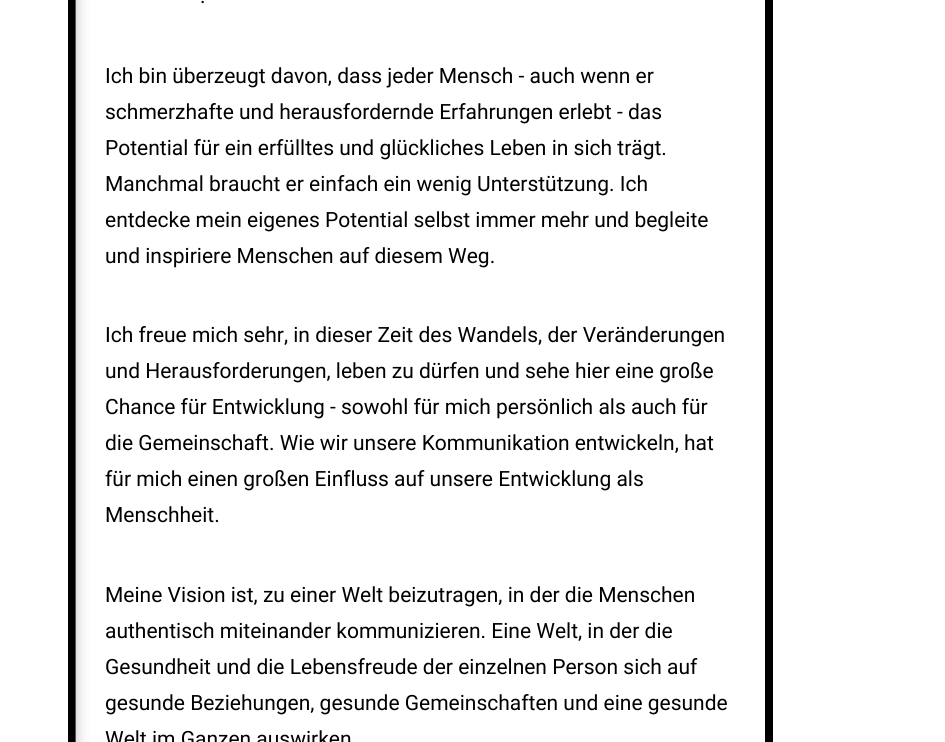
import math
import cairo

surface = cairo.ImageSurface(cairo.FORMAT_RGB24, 945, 742)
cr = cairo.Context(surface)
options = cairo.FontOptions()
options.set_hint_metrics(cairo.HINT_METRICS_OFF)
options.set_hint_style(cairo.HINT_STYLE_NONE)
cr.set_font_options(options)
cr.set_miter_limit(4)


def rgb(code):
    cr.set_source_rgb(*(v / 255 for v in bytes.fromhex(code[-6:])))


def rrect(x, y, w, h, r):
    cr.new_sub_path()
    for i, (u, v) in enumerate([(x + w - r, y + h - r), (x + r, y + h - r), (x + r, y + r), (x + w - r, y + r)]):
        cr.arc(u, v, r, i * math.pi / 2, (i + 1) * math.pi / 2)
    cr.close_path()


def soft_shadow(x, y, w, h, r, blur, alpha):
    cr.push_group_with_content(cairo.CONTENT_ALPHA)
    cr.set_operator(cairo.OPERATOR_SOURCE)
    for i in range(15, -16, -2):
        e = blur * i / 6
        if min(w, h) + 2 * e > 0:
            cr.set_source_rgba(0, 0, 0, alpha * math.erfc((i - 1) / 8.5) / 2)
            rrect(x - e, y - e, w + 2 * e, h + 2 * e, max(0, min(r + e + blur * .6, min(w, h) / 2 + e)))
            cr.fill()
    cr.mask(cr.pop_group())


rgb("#ffffff")
cr.paint()
cr.rectangle(72, -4, 697, 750)
rgb("#000000")
cr.set_line_width(8)
cr.stroke()
cr.save()
cr.rectangle(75, 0, 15, 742)
cr.clip()
rgb("#b5b5b5")
soft_shadow(-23, -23, 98, 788, 0, 7.5, 0.95)
cr.restore()
cr.select_font_face("Roboto")
cr.set_font_size(21)
for x, y, s in [
    (200, 3, "."),
    (105, 83, "Ich bin überzeugt davon, dass jeder Mensch - auch wenn er"),
    (105, 119, "schmerzhafte und herausfordernde Erfahrungen erlebt - das"),
    (105, 155, "Potential für ein erfülltes und glückliches Leben in sich trägt."),
    (105, 191, "Manchmal braucht er einfach ein wenig Unterstützung. Ich"),
    (105, 227, "entdecke mein eigenes Potential selbst immer mehr und begleite"),
    (105, 263, "und inspiriere Menschen auf diesem Weg."),
    (105, 342, "Ich freue mich sehr, in dieser Zeit des Wandels, der Veränderungen"),
    (105, 378, "und Herausforderungen, leben zu dürfen und sehe hier eine große"),
    (105, 414, "Chance für Entwicklung - sowohl für mich persönlich als auch für"),
    (105, 450, "die Gemeinschaft. Wie wir unsere Kommunikation entwickeln, hat"),
    (105, 486, "für mich einen großen Einfluss auf unsere Entwicklung als"),
    (105, 522, "Menschheit."),
    (105, 602, "Meine Vision ist, zu einer Welt beizutragen, in der die Menschen"),
    (105, 638, "authentisch miteinander kommunizieren. Eine Welt, in der die"),
    (105, 674, "Gesundheit und die Lebensfreude der einzelnen Person sich auf"),
    (105, 710, "gesunde Beziehungen, gesunde Gemeinschaften und eine gesunde"),
    (105, 746, "Welt im Ganzen auswirken"),
]:
    cr.move_to(x, y)
    cr.show_text(s)
surface.write_to_png("page.png")
